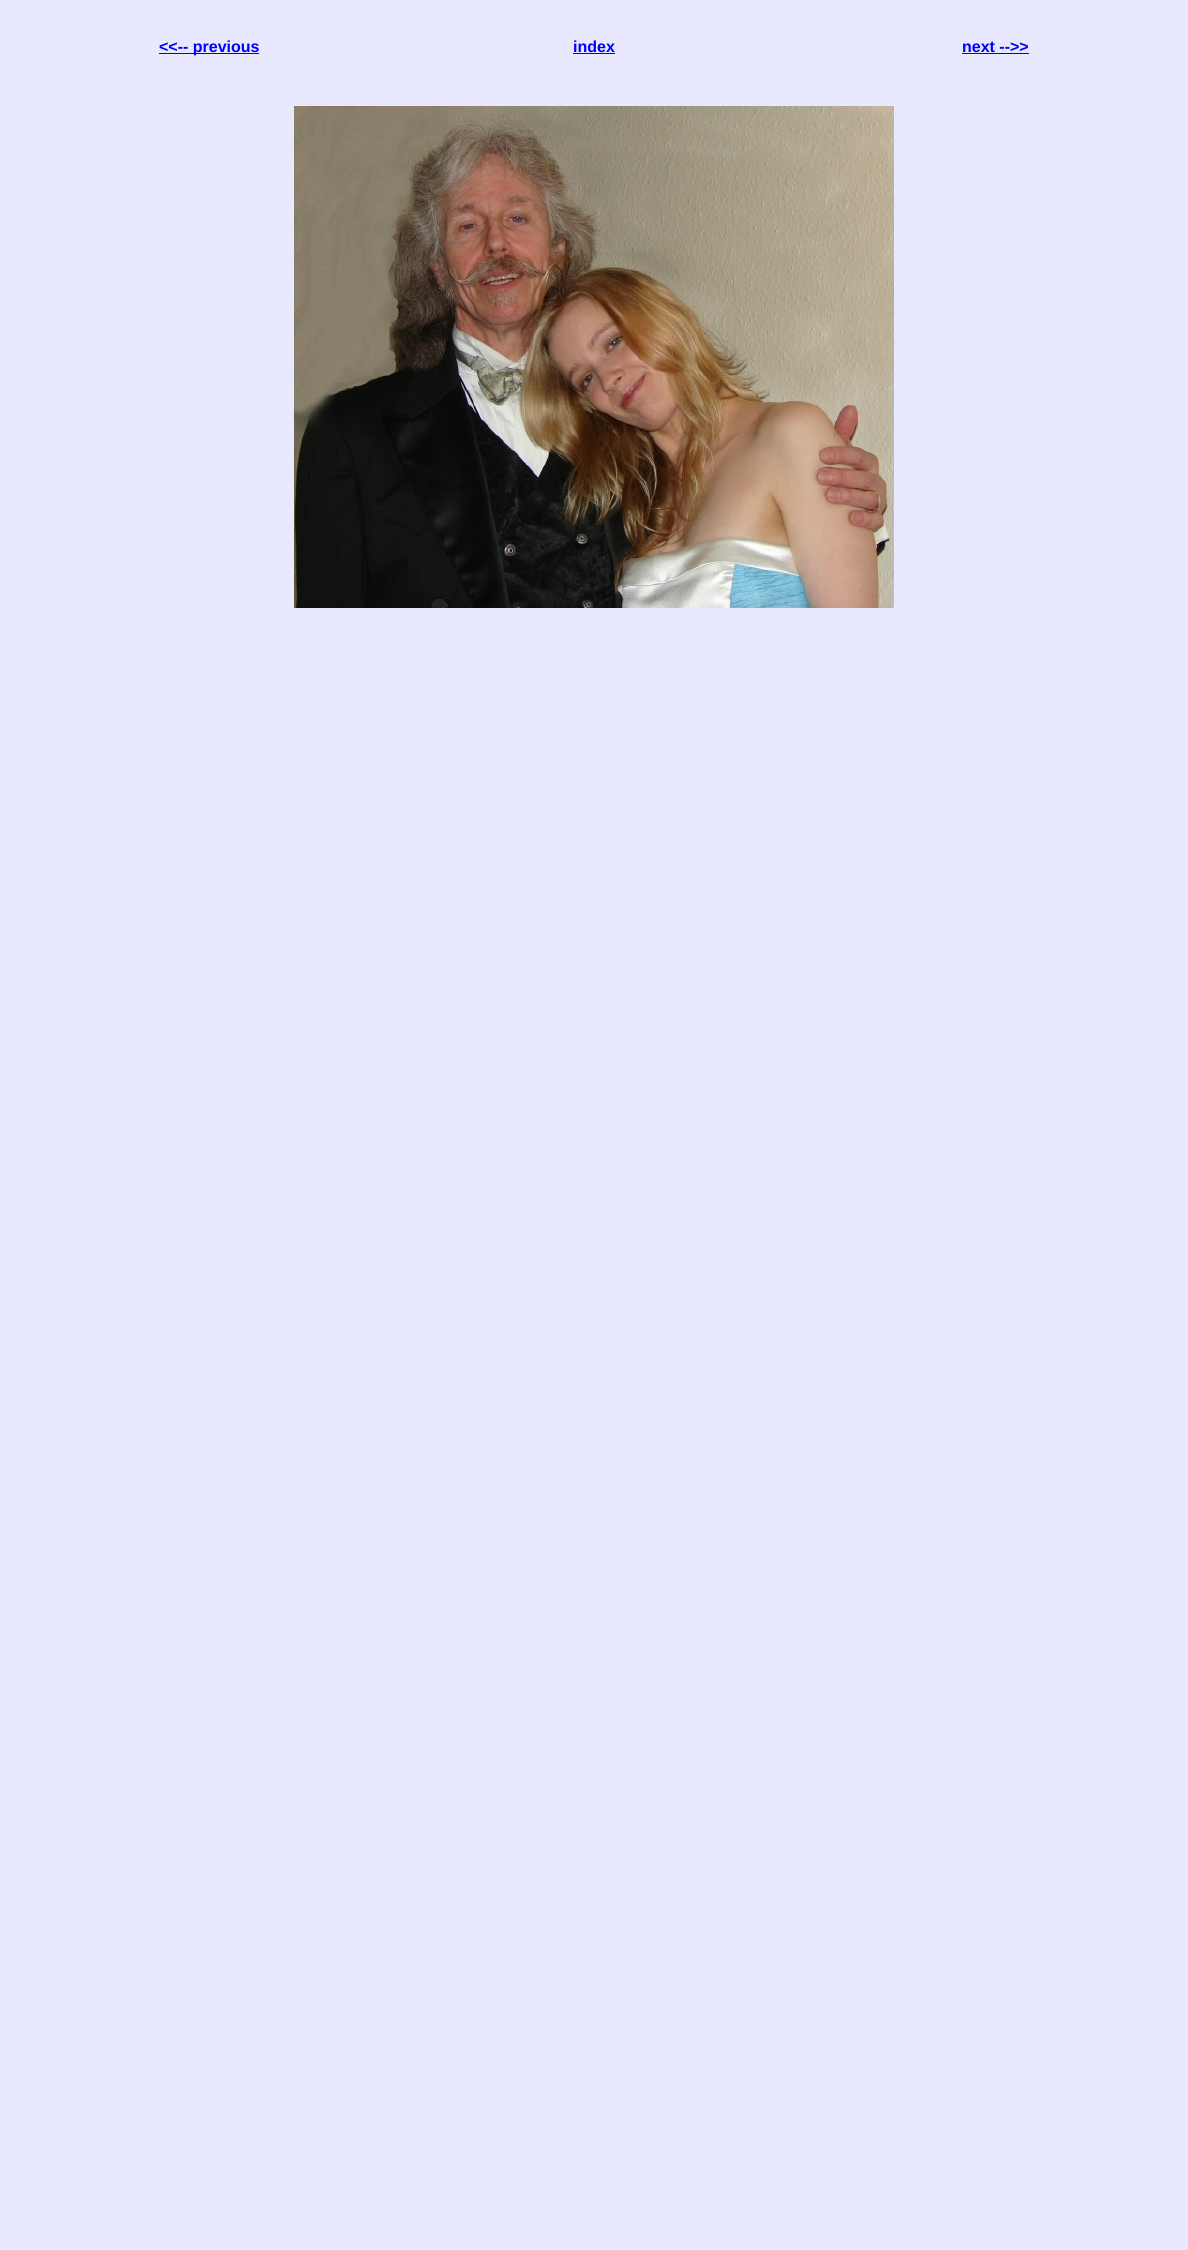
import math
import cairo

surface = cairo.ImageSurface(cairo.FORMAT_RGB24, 1188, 2250)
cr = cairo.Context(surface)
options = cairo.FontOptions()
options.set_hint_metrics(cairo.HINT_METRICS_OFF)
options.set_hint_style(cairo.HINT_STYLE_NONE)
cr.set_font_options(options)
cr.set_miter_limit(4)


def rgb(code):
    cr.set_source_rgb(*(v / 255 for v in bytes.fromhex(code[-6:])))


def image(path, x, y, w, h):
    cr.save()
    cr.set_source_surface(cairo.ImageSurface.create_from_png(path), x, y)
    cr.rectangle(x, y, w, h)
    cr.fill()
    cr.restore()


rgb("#e8e8ff")
cr.paint()
for x, y, w, h, color in [
    (159, 53, 100, 1, "#0000ff"),
    (573, 53, 42, 1, "#0000ff"),
    (962, 53, 67, 1, "#0000ff"),
]:
    rgb(color)
    cr.rectangle(x, y, w, h)
    cr.fill()
image("img/1.png", 294, 106, 600, 502)
cr.select_font_face("Liberation Sans", cairo.FONT_SLANT_NORMAL, cairo.FONT_WEIGHT_BOLD)
cr.set_font_size(16)
for x, y, s in [
    (159, 52, "<<-- previous"),
    (573, 52, "index"),
    (962, 52, "next -->>"),
]:
    cr.move_to(x, y)
    cr.show_text(s)
surface.write_to_png("page.png")
